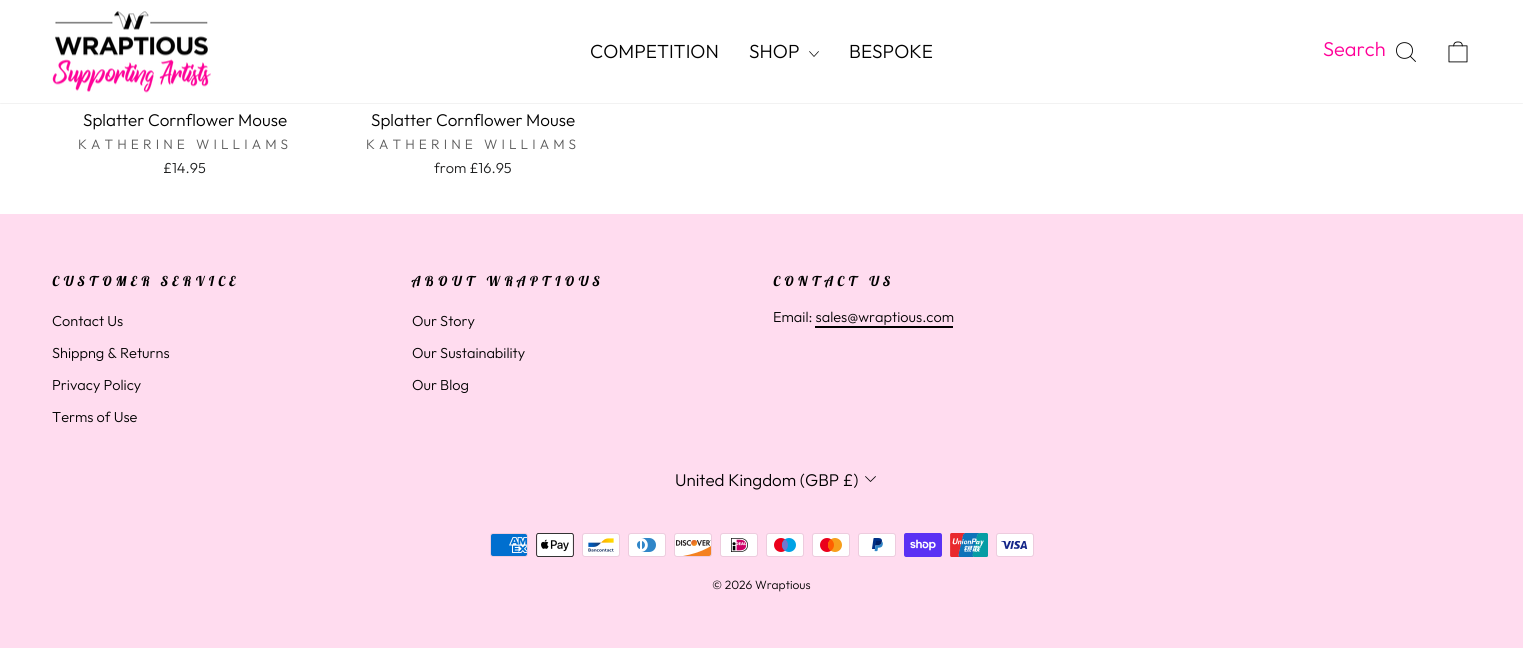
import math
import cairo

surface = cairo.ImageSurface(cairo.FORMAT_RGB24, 1523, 648)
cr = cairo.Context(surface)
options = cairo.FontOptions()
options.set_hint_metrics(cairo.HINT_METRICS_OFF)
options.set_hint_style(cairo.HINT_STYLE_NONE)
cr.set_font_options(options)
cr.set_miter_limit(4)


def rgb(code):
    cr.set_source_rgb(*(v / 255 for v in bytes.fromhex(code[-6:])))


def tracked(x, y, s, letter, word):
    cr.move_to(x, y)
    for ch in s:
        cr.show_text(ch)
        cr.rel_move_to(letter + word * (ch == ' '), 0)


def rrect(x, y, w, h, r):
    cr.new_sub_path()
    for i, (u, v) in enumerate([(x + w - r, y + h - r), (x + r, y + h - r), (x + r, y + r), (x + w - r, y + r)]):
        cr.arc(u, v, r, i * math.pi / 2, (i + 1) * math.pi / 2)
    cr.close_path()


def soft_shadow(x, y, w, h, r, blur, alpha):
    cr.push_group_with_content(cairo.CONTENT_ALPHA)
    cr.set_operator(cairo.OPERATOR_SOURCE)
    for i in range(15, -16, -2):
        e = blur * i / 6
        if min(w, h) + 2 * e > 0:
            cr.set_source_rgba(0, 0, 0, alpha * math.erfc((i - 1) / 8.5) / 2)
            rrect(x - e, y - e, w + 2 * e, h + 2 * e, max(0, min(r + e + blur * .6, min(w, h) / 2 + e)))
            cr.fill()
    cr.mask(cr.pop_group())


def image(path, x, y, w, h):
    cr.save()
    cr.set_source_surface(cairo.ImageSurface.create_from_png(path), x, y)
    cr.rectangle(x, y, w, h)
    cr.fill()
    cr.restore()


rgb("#ffffff")
cr.paint()
rgb("#000000")
soft_shadow(0, 0, 1523, 103, 0, 0.5, 0.2)
rgb("#ffffff")
cr.rectangle(0, 0, 1523, 103)
cr.fill()
image("img/1.png", 52, 11, 159, 82)
cr.new_path()
cr.move_to(809.5, 51.5)
cr.line_to(814, 56.5)
cr.line_to(818.5, 51.5)
rgb("#000000")
cr.set_line_width(0.7)
cr.set_line_cap(cairo.LINE_CAP_ROUND)
cr.set_line_join(cairo.LINE_JOIN_ROUND)
cr.stroke()
cr.new_path()
cr.move_to(1412.5, 50.5)
cr.curve_to(1412.5, 61, 1396.5, 61, 1396.5, 50.5)
cr.curve_to(1396.5, 40, 1412.5, 40, 1412.5, 50.5)
cr.close_path()
cr.move_to(1415.5, 61.5)
cr.line_to(1410.5, 56.5)
cr.set_line_width(0.9)
cr.stroke()
image("img/2.png", 1448, 41, 20, 22)
rgb("#ffdcef")
cr.rectangle(0, 214, 1523, 434)
cr.fill()
rgb("#000000")
cr.rectangle(815, 326, 138, 2)
cr.fill()
cr.new_path()
cr.move_to(865.5, 476.5)
cr.line_to(870.5, 481.5)
cr.line_to(875.5, 476.5)
cr.set_line_width(0.8)
cr.stroke()
image("img/3.png", 490, 533, 38, 24)
image("img/4.png", 536, 533, 38, 24)
image("img/5.png", 582, 533, 38, 24)
image("img/6.png", 628, 533, 38, 24)
image("img/7.png", 674, 533, 38, 24)
image("img/8.png", 720, 533, 38, 24)
image("img/9.png", 766, 533, 38, 24)
image("img/10.png", 812, 533, 38, 24)
image("img/11.png", 858, 533, 38, 24)
image("img/12.png", 904, 533, 38, 24)
image("img/13.png", 950, 533, 38, 24)
image("img/14.png", 996, 533, 38, 24)
cr.select_font_face("Outfit Light")
cr.set_font_size(19)
for x, y, s in [
    (590, 58, "COMPETITION"),
    (749, 58, "SHOP"),
    (849, 58, "BESPOKE"),
]:
    cr.move_to(x, y)
    cr.show_text(s)
cr.set_font_size(20)
rgb("#ff0098")
cr.move_to(1323, 56)
cr.show_text("Search")
cr.set_font_size(17)
rgb("#000000")
cr.move_to(83, 126)
cr.show_text("Splatter Cornflower Mouse")
cr.set_font_size(13.6)
rgb("#595959")
tracked(78, 149, "KATHERINE WILLIAMS", 4.1, 0)
cr.set_font_size(14.5)
rgb("#1c1d1d")
cr.move_to(163, 173)
cr.show_text("£14.95")
cr.set_font_size(17)
rgb("#000000")
cr.move_to(371, 126)
cr.show_text("Splatter Cornflower Mouse")
cr.set_font_size(13.6)
rgb("#595959")
tracked(366, 149, "KATHERINE WILLIAMS", 4.1, 0)
cr.set_font_size(14.5)
rgb("#1c1d1d")
cr.move_to(434, 173)
cr.show_text("from £16.95")
cr.select_font_face("Lobster Two", cairo.FONT_SLANT_ITALIC, cairo.FONT_WEIGHT_BOLD)
cr.set_font_size(13.6)
rgb("#000000")
tracked(52, 286, "CUSTOMER SERVICE", 4.1, 0)
cr.select_font_face("Outfit Light")
cr.set_font_size(14.5)
for x, y, s in [
    (52, 326, "Contact Us"),
    (52, 358, "Shippng & Returns"),
    (52, 390, "Privacy Policy"),
    (52, 422, "Terms of Use"),
]:
    cr.move_to(x, y)
    cr.show_text(s)
cr.select_font_face("Lobster Two", cairo.FONT_SLANT_ITALIC, cairo.FONT_WEIGHT_BOLD)
cr.set_font_size(13.6)
tracked(412, 286, "ABOUT WRAPTIOUS", 4.1, 0)
cr.select_font_face("Outfit Light")
cr.set_font_size(14.5)
for x, y, s in [
    (412, 326, "Our Story"),
    (412, 358, "Our Sustainability"),
    (412, 390, "Our Blog"),
]:
    cr.move_to(x, y)
    cr.show_text(s)
cr.select_font_face("Lobster Two", cairo.FONT_SLANT_ITALIC, cairo.FONT_WEIGHT_BOLD)
cr.set_font_size(13.6)
tracked(773, 286, "CONTACT US", 4.1, 0)
cr.select_font_face("Outfit Light")
cr.set_font_size(14.5)
cr.move_to(773, 322)
cr.show_text("Email: sales@wraptious.com")
cr.set_font_size(17)
cr.move_to(675, 486)
cr.show_text("United Kingdom (GBP £)")
cr.set_font_size(12)
cr.move_to(712, 589)
cr.show_text("© 2026 Wraptious")
surface.write_to_png("page.png")
